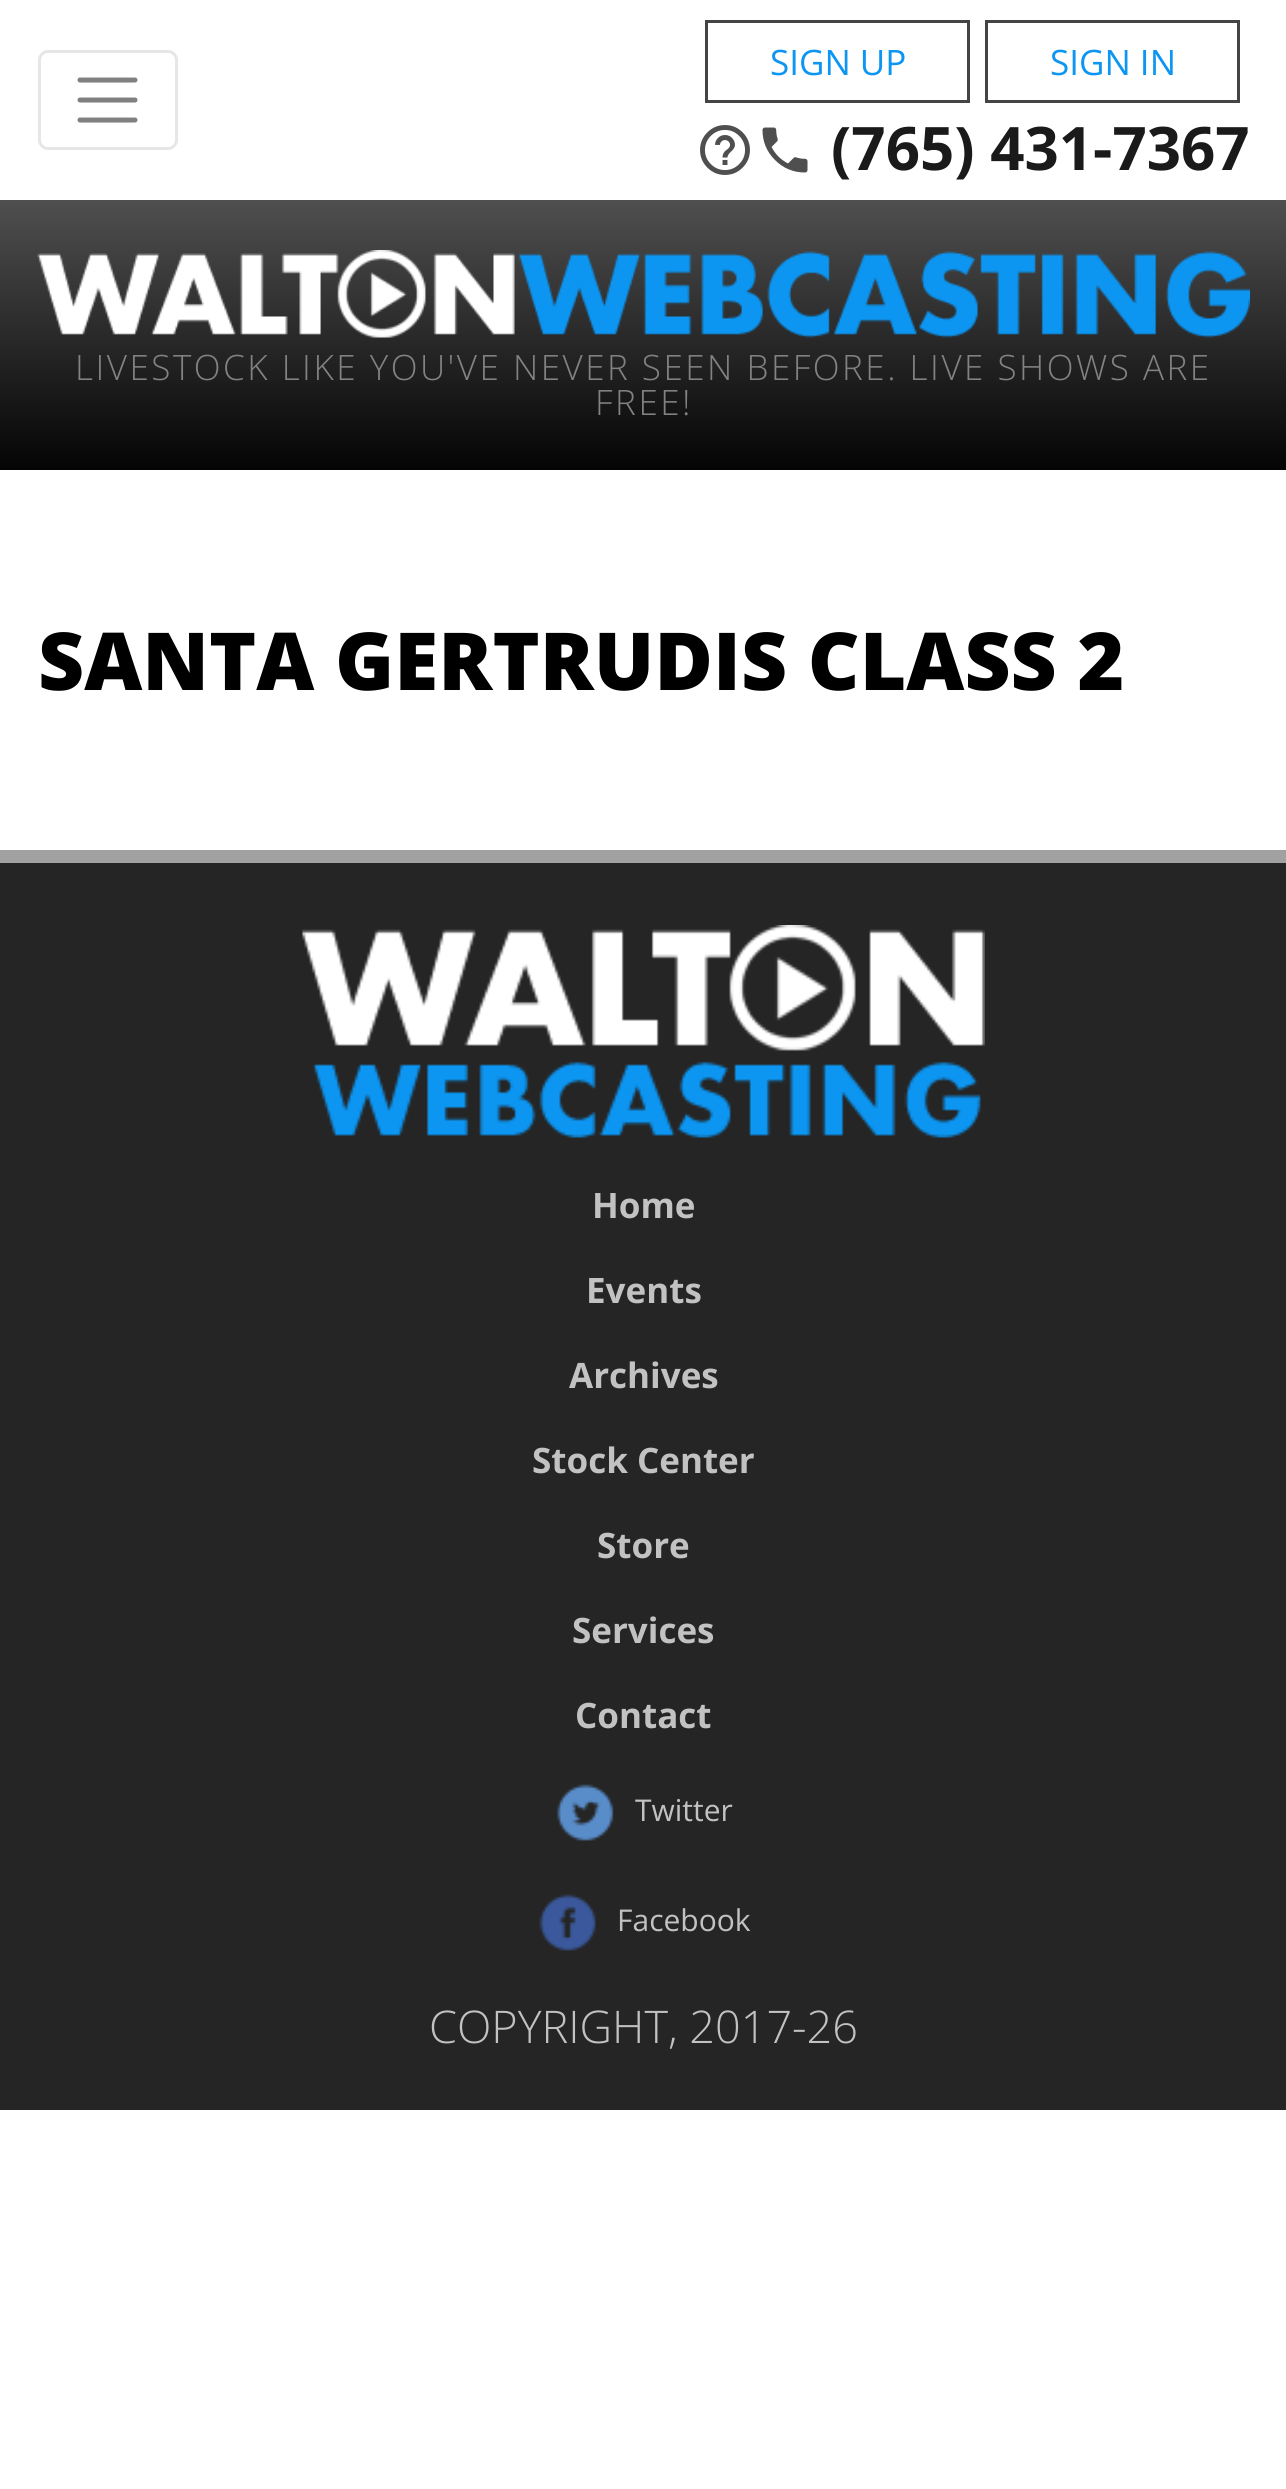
import math
import cairo

surface = cairo.ImageSurface(cairo.FORMAT_RGB24, 1286, 2489)
cr = cairo.Context(surface)
options = cairo.FontOptions()
options.set_hint_metrics(cairo.HINT_METRICS_OFF)
options.set_hint_style(cairo.HINT_STYLE_NONE)
cr.set_font_options(options)
cr.set_miter_limit(4)


def rgb(code):
    cr.set_source_rgb(*(v / 255 for v in bytes.fromhex(code[-6:])))


def tracked(x, y, s, letter, word):
    cr.move_to(x, y)
    for ch in s:
        cr.show_text(ch)
        cr.rel_move_to(letter + word * (ch == ' '), 0)


def rrect(x, y, w, h, r):
    cr.new_sub_path()
    for i, (u, v) in enumerate([(x + w - r, y + h - r), (x + r, y + h - r), (x + r, y + r), (x + w - r, y + r)]):
        cr.arc(u, v, r, i * math.pi / 2, (i + 1) * math.pi / 2)
    cr.close_path()


def image(path, x, y, w, h):
    cr.save()
    cr.set_source_surface(cairo.ImageSurface.create_from_png(path), x, y)
    cr.rectangle(x, y, w, h)
    cr.fill()
    cr.restore()


rgb("#ffffff")
cr.paint()
rrect(39.5, 51.5, 137, 97, 8.5)
rgb("#e6e6e6")
cr.set_line_width(3)
cr.stroke()
cr.new_path()
cr.move_to(80, 80)
cr.line_to(135, 80)
cr.move_to(80, 100)
cr.line_to(135, 100)
cr.move_to(80, 120)
cr.line_to(135, 120)
rgb("#808080")
cr.set_line_width(5)
cr.set_line_cap(cairo.LINE_CAP_ROUND)
cr.stroke()
cr.rectangle(706.5, 21.5, 262, 80)
rgb("#444444")
cr.set_line_width(3)
cr.set_line_cap(cairo.LINE_CAP_BUTT)
cr.stroke()
cr.rectangle(986.5, 21.5, 252, 80)
cr.stroke()
image("img/1.png", 700, 125, 50, 50)
image("img/2.png", 762, 127, 46, 46)
gradient = cairo.LinearGradient(644, 200, 644, 470)
gradient.add_color_stop_rgba(0, 0.31, 0.31, 0.31, 1)
gradient.add_color_stop_rgba(1, 0.016, 0.016, 0.016, 1)
cr.set_source(gradient)
cr.rectangle(0, 200, 1286, 270)
cr.fill()
image("img/3.png", 37, 250, 1213, 88)
rgb("#252525")
cr.rectangle(0, 863, 1286, 1247)
cr.fill()
rgb("#a1a1a1")
cr.rectangle(0, 850, 1286, 13)
cr.fill()
image("img/4.png", 302, 925, 683, 213)
image("img/5.png", 556, 1784, 58, 57)
image("img/6.png", 539, 1894, 57, 57)
cr.select_font_face("Open Sans")
cr.set_font_size(35)
rgb("#0c95f1")
cr.move_to(770, 75)
cr.show_text("SIGN UP")
cr.move_to(1050, 75)
cr.show_text("SIGN IN")
cr.select_font_face("Open Sans", cairo.FONT_SLANT_NORMAL, cairo.FONT_WEIGHT_BOLD)
cr.set_font_size(60)
rgb("#1a1a1a")
cr.move_to(831, 170)
cr.show_text("(765) 431-7367")
cr.select_font_face("Open Sans Light")
cr.set_font_size(35)
rgb("#828282")
tracked(75, 380, "LIVESTOCK LIKE YOU'VE NEVER SEEN BEFORE. LIVE SHOWS ARE", 2.5, 0)
tracked(595, 415, "FREE!", 2.5, 0)
cr.select_font_face("Open Sans ExtraBold")
cr.set_font_size(80)
rgb("#000000")
cr.move_to(38, 690)
cr.show_text("SANTA GERTRUDIS CLASS 2")
cr.select_font_face("Open Sans", cairo.FONT_SLANT_NORMAL, cairo.FONT_WEIGHT_BOLD)
cr.set_font_size(35)
rgb("#c2c2c2")
for x, y, s in [
    (592, 1218, "Home"),
    (586, 1303, "Events"),
    (569, 1388, "Archives"),
    (532, 1473, "Stock Center"),
    (597, 1558, "Store"),
    (572, 1643, "Services"),
    (575, 1728, "Contact"),
]:
    cr.move_to(x, y)
    cr.show_text(s)
cr.select_font_face("Open Sans")
cr.set_font_size(30)
cr.move_to(635, 1821)
cr.show_text("Twitter")
cr.move_to(617, 1931)
cr.show_text("Facebook")
cr.select_font_face("Open Sans Light")
cr.set_font_size(45)
cr.move_to(429, 2043)
cr.show_text("COPYRIGHT, 2017-26")
surface.write_to_png("page.png")
